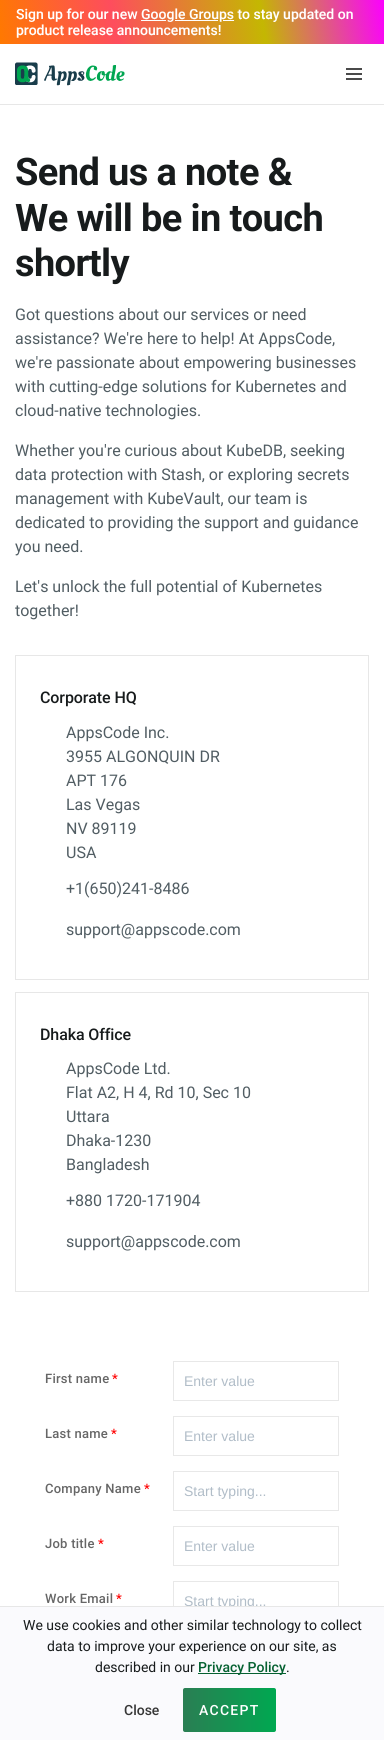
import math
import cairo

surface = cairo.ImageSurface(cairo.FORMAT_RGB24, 384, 1740)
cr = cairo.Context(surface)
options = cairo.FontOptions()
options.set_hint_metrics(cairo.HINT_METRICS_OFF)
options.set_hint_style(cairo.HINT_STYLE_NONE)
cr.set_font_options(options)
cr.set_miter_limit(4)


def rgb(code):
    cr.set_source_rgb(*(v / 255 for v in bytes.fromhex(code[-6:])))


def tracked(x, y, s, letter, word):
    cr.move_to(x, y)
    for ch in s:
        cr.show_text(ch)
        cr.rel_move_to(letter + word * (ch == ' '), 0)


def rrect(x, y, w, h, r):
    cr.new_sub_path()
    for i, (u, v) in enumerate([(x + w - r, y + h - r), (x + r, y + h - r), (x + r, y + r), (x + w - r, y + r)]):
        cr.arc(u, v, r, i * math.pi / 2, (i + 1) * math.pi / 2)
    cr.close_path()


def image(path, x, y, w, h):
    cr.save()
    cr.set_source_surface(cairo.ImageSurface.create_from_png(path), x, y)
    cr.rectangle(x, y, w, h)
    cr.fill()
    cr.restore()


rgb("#ffffff")
cr.paint()
image("img/1.png", 0, 0, 384, 44)
rgb("#e7e7e7")
cr.rectangle(0, 104, 384, 1)
cr.fill()
image("img/2.png", 15, 62, 110, 24)
for x, y, w, h, color in [
    (346, 68, 16, 2, "#4a4a4a"),
    (346, 73, 16, 2, "#4a4a4a"),
    (346, 78, 16, 2, "#4a4a4a"),
]:
    rgb(color)
    cr.rectangle(x, y, w, h)
    cr.fill()
cr.rectangle(15.5, 655.5, 353, 324)
rgb("#e7e7e7")
cr.set_line_width(1)
cr.stroke()
cr.rectangle(15.5, 992.5, 353, 299)
cr.stroke()
cr.rectangle(173.5, 1361.5, 165, 39)
rgb("#e8e8e8")
cr.stroke()
cr.rectangle(173.5, 1416.5, 165, 39)
cr.stroke()
cr.rectangle(173.5, 1471.5, 165, 39)
cr.stroke()
cr.rectangle(173.5, 1526.5, 165, 39)
cr.stroke()
cr.rectangle(173.5, 1581.5, 165, 39)
cr.stroke()
cr.select_font_face("Roboto", cairo.FONT_SLANT_NORMAL, cairo.FONT_WEIGHT_BOLD)
cr.set_font_size(38)
rgb("#171b1c")
for x, y, s in [
    (15, 185, "Send us a note &"),
    (15, 231, "We will be in touch"),
    (15, 276, "shortly"),
]:
    tracked(x, y, s, -0.6, 0)
cr.select_font_face("Roboto")
cr.set_font_size(16)
rgb("#515d63")
for x, y, s in [
    (15, 320, "Got questions about our services or need"),
    (15, 344, "assistance? We're here to help! At AppsCode,"),
    (15, 368, "we're passionate about empowering businesses"),
    (15, 392, "with cutting-edge solutions for Kubernetes and"),
    (15, 416, "cloud-native technologies."),
    (15, 456, "Whether you're curious about KubeDB, seeking"),
    (15, 480, "data protection with Stash, or exploring secrets"),
    (15, 504, "management with KubeVault, our team is"),
    (15, 528, "dedicated to providing the support and guidance"),
    (15, 552, "you need."),
    (15, 592, "Let's unlock the full potential of Kubernetes"),
    (15, 616, "together!"),
]:
    cr.move_to(x, y)
    cr.show_text(s)
cr.select_font_face("Roboto Medium")
rgb("#171b1c")
tracked(40, 703, "Corporate HQ", -0.1, 0)
cr.select_font_face("Roboto")
rgb("#515d63")
for x, y, s in [
    (66, 738, "AppsCode Inc."),
    (66, 762, "3955 ALGONQUIN DR"),
    (66, 786, "APT 176"),
    (66, 810, "Las Vegas"),
    (66, 834, "NV 89119"),
    (66, 858, "USA"),
    (66, 894, "+1(650)241-8486"),
    (66, 935, "support@appscode.com"),
]:
    cr.move_to(x, y)
    cr.show_text(s)
cr.select_font_face("Roboto Medium")
rgb("#171b1c")
tracked(40, 1040, "Dhaka Office", -0.1, 0)
cr.select_font_face("Roboto")
rgb("#515d63")
for x, y, s in [
    (66, 1074, "AppsCode Ltd."),
    (66, 1098, "Flat A2, H 4, Rd 10, Sec 10"),
    (66, 1122, "Uttara"),
    (66, 1146, "Dhaka-1230"),
    (66, 1170, "Bangladesh"),
    (66, 1206, "+880 1720-171904"),
    (66, 1247, "support@appscode.com"),
]:
    cr.move_to(x, y)
    cr.show_text(s)
cr.select_font_face("Roboto Medium")
cr.set_font_size(13)
rgb("#666666")
tracked(45, 1383, "First name", 0.25, 0)
rgb("#ff0000")
tracked(112, 1383, "*", 0.25, 0)
cr.select_font_face("Liberation Sans")
cr.set_font_size(14)
rgb("#b1bdc8")
cr.move_to(184, 1386)
cr.show_text("Enter value")
cr.select_font_face("Roboto Medium")
cr.set_font_size(13)
rgb("#666666")
tracked(45, 1438, "Last name", 0.25, 0)
rgb("#ff0000")
tracked(111, 1438, "*", 0.25, 0)
cr.select_font_face("Liberation Sans")
cr.set_font_size(14)
rgb("#b1bdc8")
cr.move_to(184, 1441)
cr.show_text("Enter value")
cr.select_font_face("Roboto Medium")
cr.set_font_size(13)
rgb("#666666")
tracked(45, 1493, "Company Name", 0.25, 0)
rgb("#ff0000")
tracked(144, 1493, "*", 0.25, 0)
cr.select_font_face("Liberation Sans")
cr.set_font_size(14)
rgb("#b1bdc8")
cr.move_to(184, 1496)
cr.show_text("Start typing...")
cr.select_font_face("Roboto Medium")
cr.set_font_size(13)
rgb("#666666")
tracked(45, 1548, "Job title", 0.25, 0)
rgb("#ff0000")
tracked(98, 1548, "*", 0.25, 0)
cr.select_font_face("Liberation Sans")
cr.set_font_size(14)
rgb("#b1bdc8")
cr.move_to(184, 1551)
cr.show_text("Enter value")
cr.select_font_face("Roboto Medium")
cr.set_font_size(13)
rgb("#666666")
tracked(45, 1603, "Work Email", 0.25, 0)
rgb("#ff0000")
tracked(116, 1603, "*", 0.25, 0)
cr.select_font_face("Liberation Sans")
cr.set_font_size(14)
rgb("#b1bdc8")
cr.move_to(184, 1606)
cr.show_text("Start typing...")
rgb("#fafafd")
cr.rectangle(0, 1607, 384, 133)
cr.fill()
rgb("#e7e7e7")
cr.rectangle(0, 1606, 384, 1)
cr.fill()
cr.select_font_face("Roboto")
rgb("#171b1c")
for x, y, s in [
    (23, 1630, "We use cookies and other similar technology to collect"),
    (47, 1651, "data to improve your experience on our site, as"),
    (95, 1672, "described in our"),
]:
    cr.move_to(x, y)
    cr.show_text(s)
rgb("#056131")
cr.rectangle(198, 1673, 88, 1)
cr.fill()
cr.select_font_face("Roboto Medium")
cr.move_to(198, 1672)
cr.show_text("Privacy Policy")
cr.select_font_face("Roboto")
rgb("#171b1c")
cr.move_to(286, 1672)
cr.show_text(".")
cr.select_font_face("Roboto Medium")
rgb("#363636")
cr.move_to(124, 1715)
cr.show_text("Close")
gradient = cairo.LinearGradient(276, 1710, 183, 1710)
gradient.add_color_stop_rgba(0, 0, 0.659, 0.318, 1)
gradient.add_color_stop_rgba(1, 0.165, 0.494, 0.325, 1)
cr.set_source(gradient)
rrect(183, 1688, 93, 44, 2)
cr.fill()
rgb("#ffffff")
tracked(199, 1715, "ACCEPT", 1.25, 0)
surface.write_to_png("page.png")
